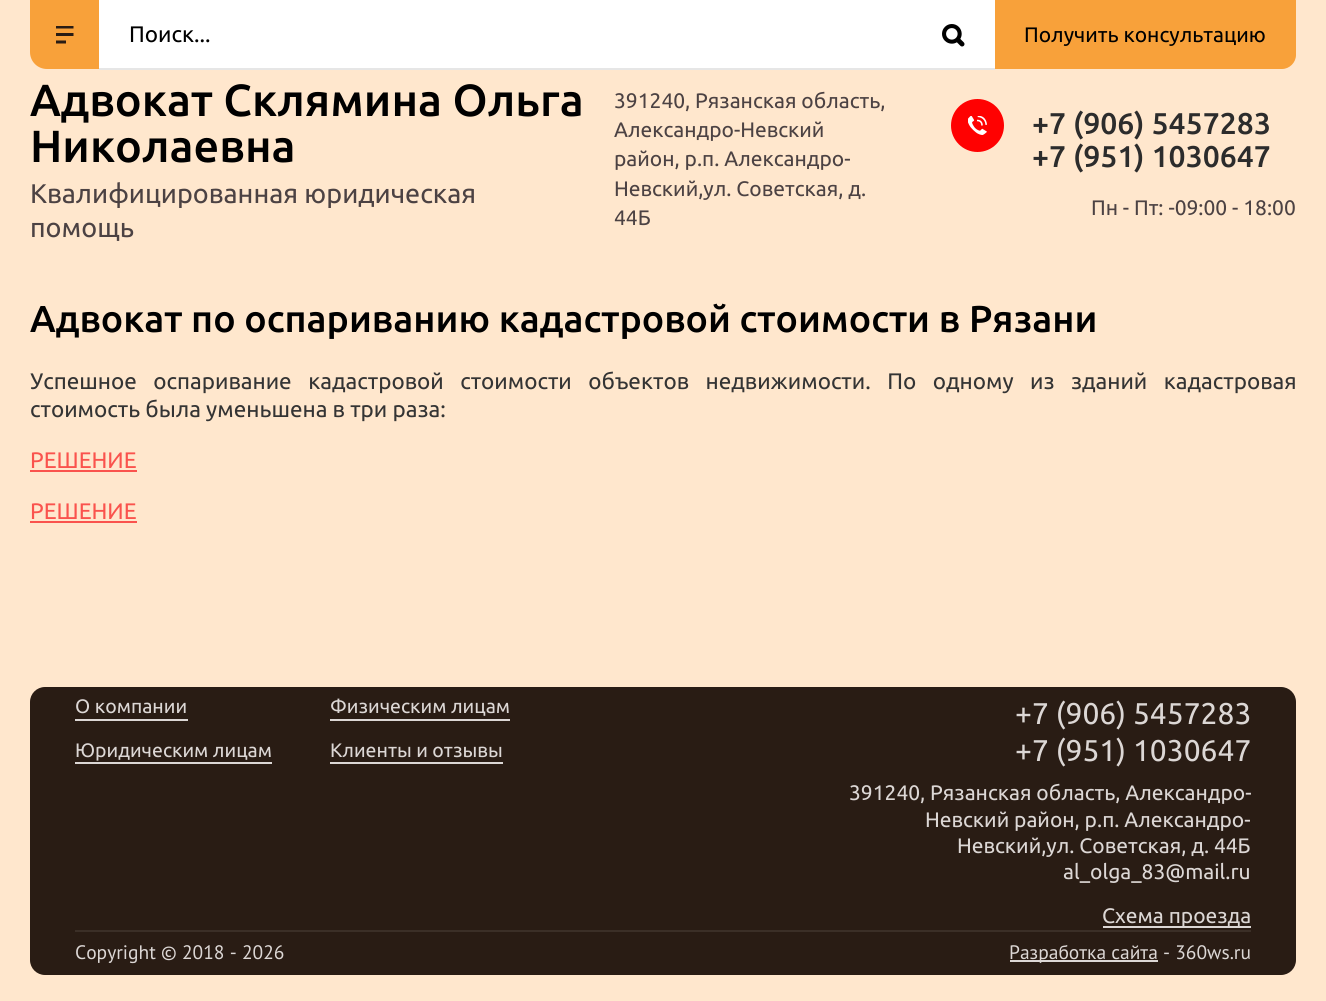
import math
import cairo

surface = cairo.ImageSurface(cairo.FORMAT_RGB24, 1326, 1001)
cr = cairo.Context(surface)
options = cairo.FontOptions()
options.set_hint_metrics(cairo.HINT_METRICS_OFF)
options.set_hint_style(cairo.HINT_STYLE_NONE)
cr.set_font_options(options)
cr.set_miter_limit(4)


def rgb(code):
    cr.set_source_rgb(*(v / 255 for v in bytes.fromhex(code[-6:])))


def tracked(x, y, s, letter, word):
    cr.move_to(x, y)
    for ch in s:
        cr.show_text(ch)
        cr.rel_move_to(letter + word * (ch == ' '), 0)


def rrect(x, y, w, h, r):
    cr.new_sub_path()
    for i, (u, v) in enumerate([(x + w - r, y + h - r), (x + r, y + h - r), (x + r, y + r), (x + w - r, y + r)]):
        cr.arc(u, v, r, i * math.pi / 2, (i + 1) * math.pi / 2)
    cr.close_path()


def image(path, x, y, w, h):
    cr.save()
    cr.set_source_surface(cairo.ImageSurface.create_from_png(path), x, y)
    cr.rectangle(x, y, w, h)
    cr.fill()
    cr.restore()


rgb("#ffe7cd")
cr.paint()
rgb("#f8a13a")
cr.new_path()
cr.move_to(30, 0)
cr.line_to(99, 0)
cr.line_to(99, 69)
cr.line_to(47, 69)
cr.curve_to(37.5, 69, 30, 61.5, 30, 52)
cr.close_path()
cr.fill()
image("img/1.png", 56, 26, 18, 18)
rgb("#ffffff")
cr.rectangle(99, 0, 896, 68)
cr.fill()
rgb("#e6e6e6")
cr.rectangle(99, 68, 896, 2)
cr.fill()
image("img/2.png", 942, 24, 23, 23)
rgb("#f8a13a")
cr.new_path()
cr.move_to(995, 0)
cr.line_to(1296, 0)
cr.line_to(1296, 55)
cr.curve_to(1296, 62.5, 1289.5, 69, 1282, 69)
cr.line_to(995, 69)
cr.close_path()
cr.fill()
rgb("#ff0101")
cr.arc(977.5, 125.5, 26.5, 0, 2 * math.pi)
cr.fill()
image("img/3.png", 968, 116, 19, 19)
rgb("#fa534d")
cr.rectangle(30, 470, 107, 2)
cr.fill()
cr.rectangle(30, 521, 107, 2)
cr.fill()
rgb("#291c14")
rrect(30, 687, 1266, 288, 15)
cr.fill()
for x, y, w, h, color in [
    (75, 719, 113, 2, "#dcd7d5"),
    (75, 762, 197, 2, "#dcd7d5"),
    (330, 719, 180, 2, "#dcd7d5"),
    (330, 762, 173, 2, "#dcd7d5"),
    (1103, 926, 148, 2, "#dcd7d5"),
    (75, 930, 1176, 2, "#3b2f27"),
    (1010, 960, 148, 2, "#dcd7d5"),
]:
    rgb(color)
    cr.rectangle(x, y, w, h)
    cr.fill()
cr.select_font_face("Ubuntu")
cr.set_font_size(22.5)
rgb("#000000")
cr.move_to(129, 42)
cr.show_text("Поиск...")
cr.set_font_size(21)
cr.move_to(1024, 42)
cr.show_text("Получить консультацию")
cr.select_font_face("Ubuntu Medium")
cr.set_font_size(45)
cr.move_to(30, 116)
cr.show_text("Адвокат Склямина Ольга")
cr.move_to(30, 162)
cr.show_text("Николаевна")
cr.select_font_face("Ubuntu")
cr.set_font_size(27)
rgb("#4c4243")
cr.move_to(30, 203)
cr.show_text("Квалифицированная юридическая")
cr.move_to(30, 237)
cr.show_text("помощь")
cr.set_font_size(21)
for x, y, s in [
    (614, 108, "391240, Рязанская область,"),
    (614, 137, "Александро-Невский"),
    (614, 166, "район, р.п. Александро-"),
    (614, 196, "Невский,ул. Советская, д."),
    (614, 225, "44Б"),
]:
    cr.move_to(x, y)
    cr.show_text(s)
cr.select_font_face("Ubuntu Medium")
cr.set_font_size(30)
rgb("#2c2c2c")
cr.move_to(1032, 134)
cr.show_text("+7 (906) 5457283")
cr.move_to(1032, 167)
cr.show_text("+7 (951) 1030647")
cr.select_font_face("Ubuntu")
cr.set_font_size(21)
rgb("#4c4243")
cr.move_to(1091, 215)
cr.show_text("Пн - Пт: -09:00 - 18:00")
cr.select_font_face("Ubuntu Medium")
cr.set_font_size(37.5)
rgb("#000000")
cr.move_to(30, 332)
cr.show_text("Адвокат по оспариванию кадастровой стоимости в Рязани")
cr.select_font_face("Ubuntu")
cr.set_font_size(22.5)
rgb("#343434")
tracked(30, 389, "Успешное оспаривание кадастровой стоимости объектов недвижимости. По одному из зданий кадастровая", 0, 11.25)
cr.move_to(30, 417)
cr.show_text("стоимость была уменьшена в три раза:")
rgb("#fa534d")
cr.move_to(30, 468)
cr.show_text("РЕШЕНИЕ")
cr.move_to(30, 519)
cr.show_text("РЕШЕНИЕ")
cr.set_font_size(19.5)
rgb("#dcd7d5")
for x, y, s in [
    (75, 713, "О компании"),
    (75, 757, "Юридическим лицам"),
    (330, 713, "Физическим лицам"),
    (330, 757, "Клиенты и отзывы"),
]:
    cr.move_to(x, y)
    cr.show_text(s)
cr.set_font_size(30)
cr.move_to(1015, 724)
cr.show_text("+7 (906) 5457283")
cr.move_to(1015, 761)
cr.show_text("+7 (951) 1030647")
cr.set_font_size(21)
for x, y, s in [
    (849, 800, "391240, Рязанская область, Александро-"),
    (925, 827, "Невский район, р.п. Александро-"),
    (957, 853, "Невский,ул. Советская, д. 44Б"),
    (1063, 879, "al_olga_83@mail.ru"),
    (1102, 923, "Схема проезда"),
]:
    cr.move_to(x, y)
    cr.show_text(s)
cr.select_font_face("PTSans")
cr.set_font_size(19.5)
cr.move_to(75, 959)
cr.show_text("Copyright © 2018 - 2026")
cr.move_to(1009, 959)
cr.show_text("Разработка сайта - 360ws.ru")
surface.write_to_png("page.png")
